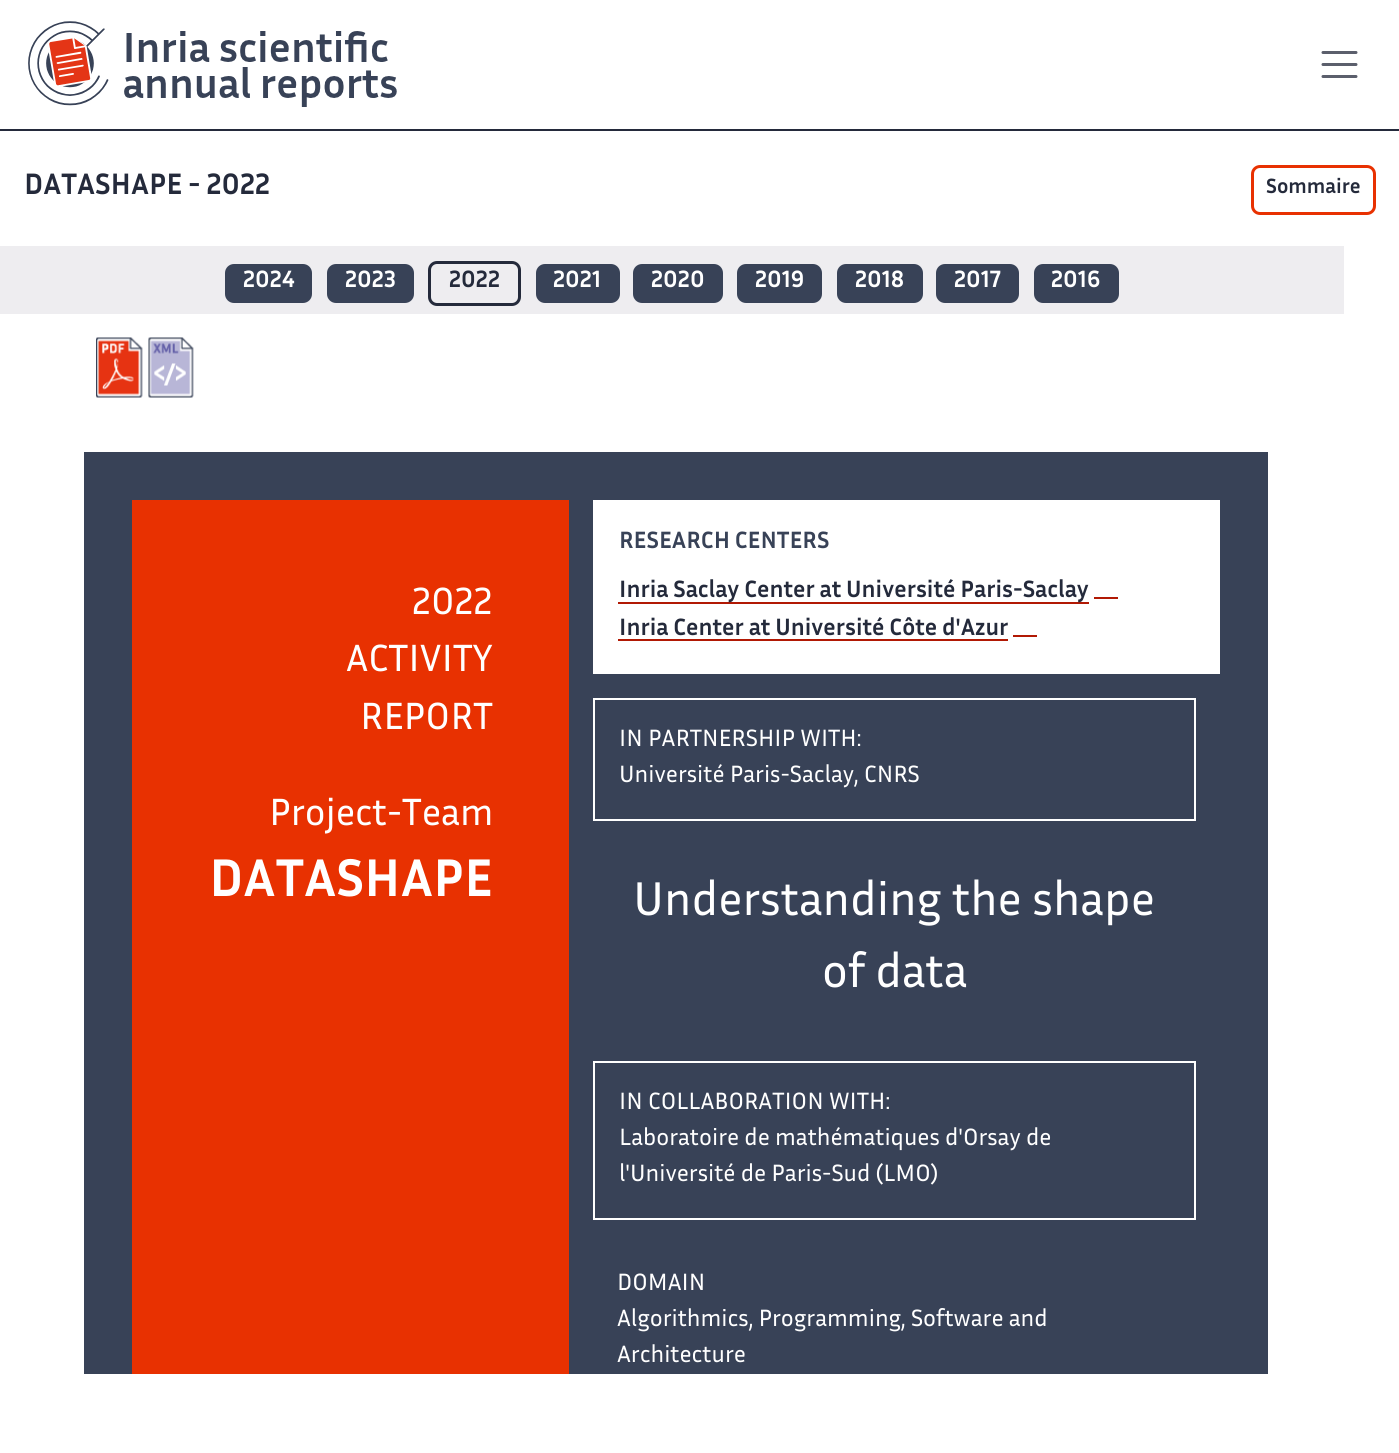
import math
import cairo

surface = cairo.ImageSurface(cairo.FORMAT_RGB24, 1399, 1453)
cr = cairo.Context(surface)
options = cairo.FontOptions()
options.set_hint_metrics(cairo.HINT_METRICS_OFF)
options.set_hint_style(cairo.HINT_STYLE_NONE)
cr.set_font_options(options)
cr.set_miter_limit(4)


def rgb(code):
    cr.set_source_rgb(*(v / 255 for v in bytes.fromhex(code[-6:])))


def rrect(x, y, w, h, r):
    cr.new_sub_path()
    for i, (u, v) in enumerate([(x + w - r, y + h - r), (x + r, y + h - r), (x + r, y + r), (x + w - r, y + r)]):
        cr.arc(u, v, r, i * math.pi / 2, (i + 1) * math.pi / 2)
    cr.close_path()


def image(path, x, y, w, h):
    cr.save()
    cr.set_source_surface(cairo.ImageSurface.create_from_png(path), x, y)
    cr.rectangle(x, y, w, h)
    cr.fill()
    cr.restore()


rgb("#ffffff")
cr.paint()
rgb("#242a3b")
cr.rectangle(0, 129, 1399, 2)
cr.fill()
image("img/1.png", 28, 21, 369, 86)
cr.new_path()
cr.move_to(1323, 52.5)
cr.line_to(1356, 52.5)
cr.move_to(1323, 64.5)
cr.line_to(1356, 64.5)
cr.move_to(1323, 76.5)
cr.line_to(1356, 76.5)
rgb("#5b5f6c")
cr.set_line_width(3)
cr.set_line_cap(cairo.LINE_CAP_ROUND)
cr.stroke()
rrect(1252.5, 166.5, 122, 47, 7.5)
rgb("#e83101")
cr.set_line_cap(cairo.LINE_CAP_BUTT)
cr.stroke()
rgb("#eeedf0")
cr.rectangle(0, 246, 1344, 68)
cr.fill()
rgb("#384257")
rrect(225, 264, 87, 39, 9)
cr.fill()
rrect(327, 264, 87, 39, 9)
cr.fill()
rrect(429.5, 262.5, 90, 42, 7.5)
rgb("#242a3b")
cr.stroke()
rgb("#384257")
rrect(536, 264, 84, 39, 9)
cr.fill()
rrect(633, 264, 90, 39, 9)
cr.fill()
rrect(737, 264, 85, 39, 9)
cr.fill()
rrect(837, 264, 86, 39, 9)
cr.fill()
rrect(936, 264, 83, 39, 9)
cr.fill()
rrect(1034, 264, 85, 39, 9)
cr.fill()
image("img/2.png", 96, 337, 47, 61)
image("img/3.png", 148, 337, 46, 61)
for x, y, w, h, color in [
    (84, 452, 1184, 922, "#384257"),
    (132, 500, 437, 874, "#e83101"),
    (593, 500, 627, 174, "#ffffff"),
    (618, 602, 471, 2, "#b11904"),
    (1094, 597, 24, 2, "#b11904"),
    (618, 639, 390, 2, "#b11904"),
    (1013, 635, 24, 2, "#b11904"),
]:
    rgb(color)
    cr.rectangle(x, y, w, h)
    cr.fill()
cr.rectangle(594, 699, 601, 121)
rgb("#ffffff")
cr.set_line_width(2)
cr.stroke()
cr.rectangle(594, 1062, 601, 157)
cr.stroke()
cr.select_font_face("Inria Sans", cairo.FONT_SLANT_NORMAL, cairo.FONT_WEIGHT_BOLD)
cr.set_font_size(30)
rgb("#242a3b")
cr.move_to(24, 194)
cr.show_text("DATASHAPE - 2022")
cr.set_font_size(21)
cr.move_to(1266, 193)
cr.show_text("Sommaire")
cr.set_font_size(24)
rgb("#ffffff")
cr.move_to(243, 287)
cr.show_text("2024")
cr.move_to(345, 287)
cr.show_text("2023")
rgb("#242a3b")
cr.move_to(449, 287)
cr.show_text("2022")
rgb("#ffffff")
for x, y, s in [
    (553, 287, "2021"),
    (651, 287, "2020"),
    (755, 287, "2019"),
    (855, 287, "2018"),
    (954, 287, "2017"),
    (1051, 287, "2016"),
]:
    cr.move_to(x, y)
    cr.show_text(s)
cr.select_font_face("Inria Sans")
cr.set_font_size(38.5)
for x, y, s in [
    (412, 614, "2022"),
    (346, 671, "ACTIVITY"),
    (360, 729, "REPORT"),
    (269, 825, "Project-Team"),
]:
    cr.move_to(x, y)
    cr.show_text(s)
cr.select_font_face("Inria Sans", cairo.FONT_SLANT_NORMAL, cairo.FONT_WEIGHT_BOLD)
cr.set_font_size(53.75)
cr.move_to(209, 896)
cr.show_text("DATASHAPE")
cr.set_font_size(24)
rgb("#384257")
cr.move_to(619, 548)
cr.show_text("RESEARCH CENTERS")
rgb("#242a3b")
cr.move_to(619, 597)
cr.show_text("Inria Saclay Center at Université Paris-Saclay")
cr.move_to(619, 635)
cr.show_text("Inria Center at Université Côte d'Azur")
cr.select_font_face("Inria Sans")
rgb("#ffffff")
cr.move_to(619, 746)
cr.show_text("IN PARTNERSHIP WITH:")
cr.move_to(619, 782)
cr.show_text("Université Paris-Saclay, CNRS")
cr.set_font_size(48)
cr.move_to(633, 915)
cr.show_text("Understanding the shape")
cr.move_to(822, 987)
cr.show_text("of data")
cr.set_font_size(24)
for x, y, s in [
    (619, 1109, "IN COLLABORATION WITH:"),
    (619, 1145, "Laboratoire de mathématiques d'Orsay de"),
    (619, 1181, "l'Université de Paris-Sud (LMO)"),
    (617, 1290, "DOMAIN"),
    (617, 1326, "Algorithmics, Programming, Software and"),
    (617, 1362, "Architecture"),
]:
    cr.move_to(x, y)
    cr.show_text(s)
surface.write_to_png("page.png")
